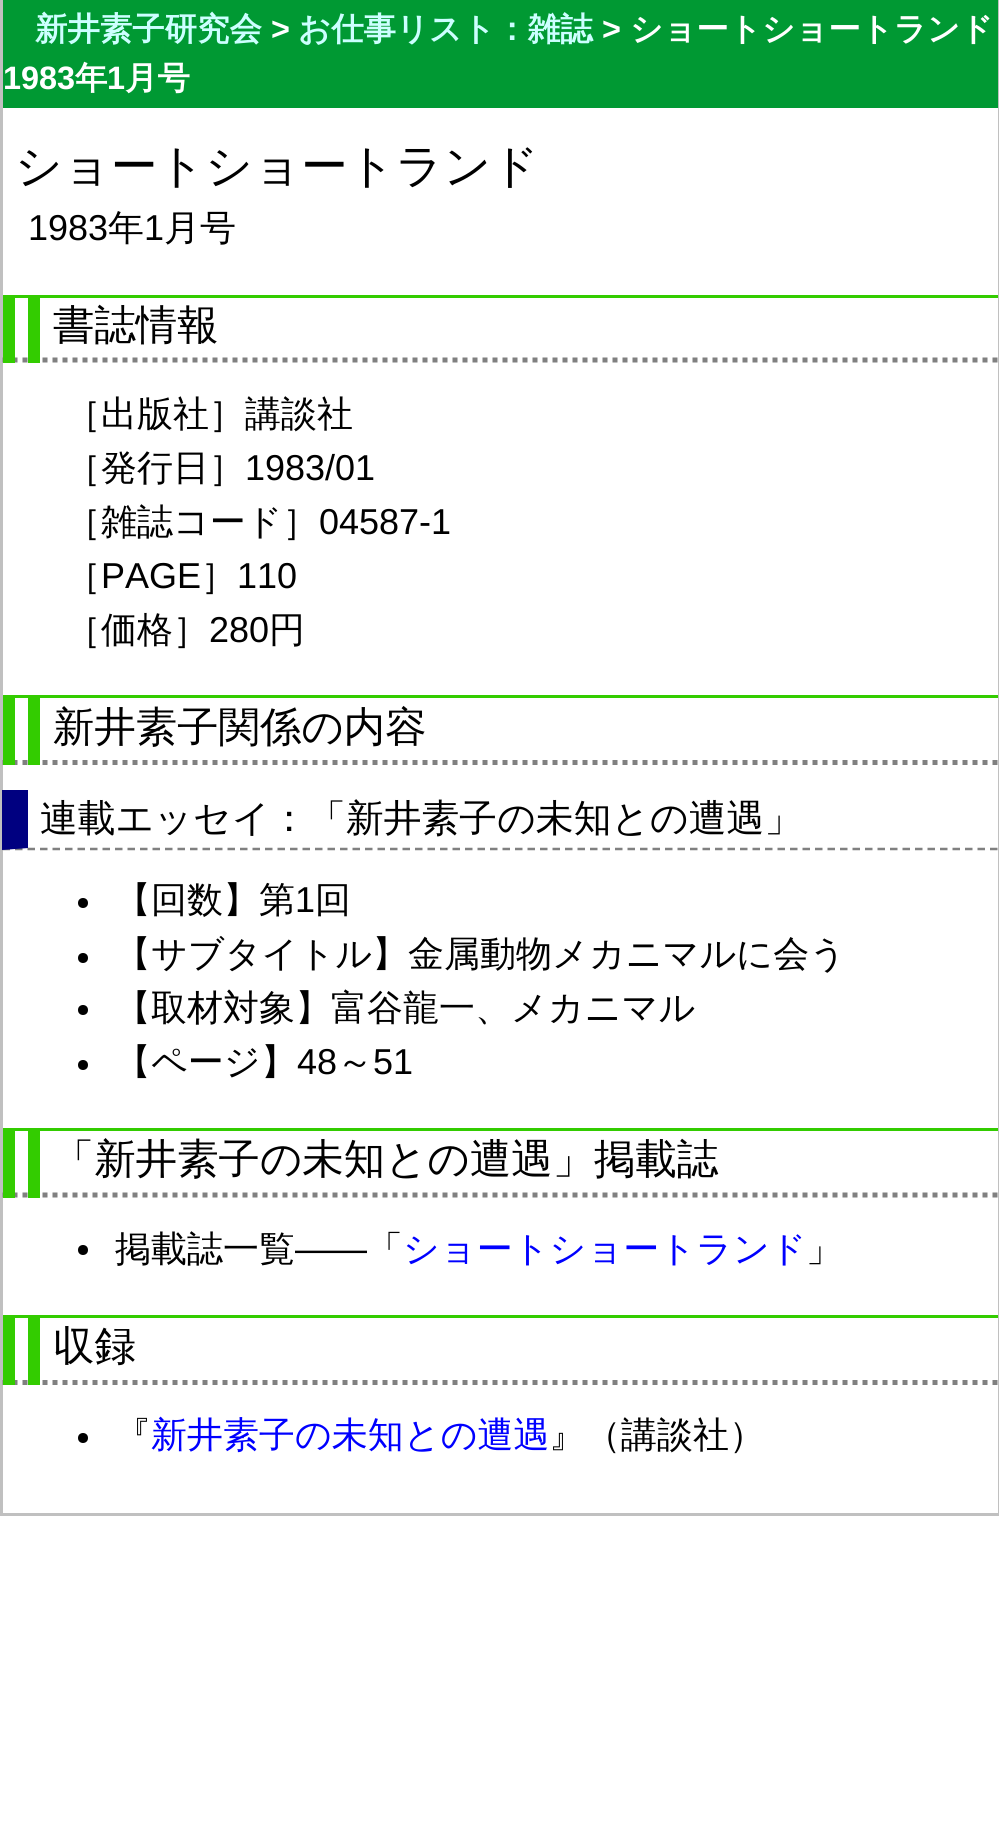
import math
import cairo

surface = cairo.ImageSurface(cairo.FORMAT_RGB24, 999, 1830)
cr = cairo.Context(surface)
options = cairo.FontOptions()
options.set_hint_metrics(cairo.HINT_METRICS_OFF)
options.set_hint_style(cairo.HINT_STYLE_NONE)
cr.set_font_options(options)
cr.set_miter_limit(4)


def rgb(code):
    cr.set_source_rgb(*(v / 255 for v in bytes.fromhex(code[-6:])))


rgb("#ffffff")
cr.paint()
for x, y, w, h, color in [
    (998, 0, 1, 1515, "#c0c0c0"),
    (0, 1513, 999, 3, "#c0c0c0"),
    (0, 0, 3, 1515, "#c0c0c0"),
    (3, 0, 995, 108, "#009933"),
    (15, 295, 983, 3, "#33cc00"),
]:
    rgb(color)
    cr.rectangle(x, y, w, h)
    cr.fill()
cr.new_path()
cr.move_to(2.5, 360)
cr.line_to(997.5, 360)
rgb("#808080")
cr.set_line_width(5)
cr.set_dash([5, 5])
cr.stroke()
for x, y, w, h, color in [
    (3, 295, 12, 68, "#33cc00"),
    (28, 298, 12, 65, "#33cc00"),
    (15, 695, 983, 3, "#33cc00"),
]:
    rgb(color)
    cr.rectangle(x, y, w, h)
    cr.fill()
cr.new_path()
cr.move_to(2.5, 762.5)
cr.line_to(997.5, 762.5)
rgb("#808080")
cr.stroke()
rgb("#33cc00")
cr.rectangle(3, 695, 12, 70)
cr.fill()
cr.rectangle(28, 698, 12, 67)
cr.fill()
cr.new_path()
cr.move_to(2.5, 849)
cr.line_to(997.5, 849)
rgb("#808080")
cr.set_line_width(2.5)
cr.set_dash([7.5, 5])
cr.stroke()
rgb("#000080")
cr.new_path()
cr.move_to(2, 850)
cr.line_to(2, 790)
cr.line_to(28, 790)
cr.line_to(28, 848)
cr.close_path()
cr.fill()
rgb("#000000")
cr.arc(83, 903, 5, 0, 2 * math.pi)
cr.fill()
cr.arc(83, 958, 5, 0, 2 * math.pi)
cr.fill()
cr.arc(83, 1010, 5, 0, 2 * math.pi)
cr.fill()
cr.arc(83, 1065, 5, 0, 2 * math.pi)
cr.fill()
rgb("#33cc00")
cr.rectangle(15, 1128, 983, 3)
cr.fill()
cr.new_path()
cr.move_to(2.5, 1195)
cr.line_to(997.5, 1195)
rgb("#808080")
cr.set_line_width(5)
cr.set_dash([5, 5])
cr.stroke()
rgb("#33cc00")
cr.rectangle(3, 1128, 12, 70)
cr.fill()
cr.rectangle(28, 1131, 12, 67)
cr.fill()
rgb("#000000")
cr.arc(83, 1250, 5, 0, 2 * math.pi)
cr.fill()
rgb("#33cc00")
cr.rectangle(15, 1315, 983, 3)
cr.fill()
cr.new_path()
cr.move_to(2.5, 1382.5)
cr.line_to(997.5, 1382.5)
rgb("#808080")
cr.stroke()
rgb("#33cc00")
cr.rectangle(3, 1315, 12, 70)
cr.fill()
cr.rectangle(28, 1318, 12, 67)
cr.fill()
rgb("#000000")
cr.arc(83, 1438, 5, 0, 2 * math.pi)
cr.fill()
cr.select_font_face("WenQuanYi Zen Hei", cairo.FONT_SLANT_NORMAL, cairo.FONT_WEIGHT_BOLD)
cr.set_font_size(32.4)
rgb("#ccffff")
cr.move_to(35, 40)
cr.show_text("新井素子研究会")
cr.select_font_face("Liberation Sans", cairo.FONT_SLANT_NORMAL, cairo.FONT_WEIGHT_BOLD)
rgb("#ffffff")
cr.move_to(271, 40)
cr.show_text(">")
cr.select_font_face("WenQuanYi Zen Hei", cairo.FONT_SLANT_NORMAL, cairo.FONT_WEIGHT_BOLD)
rgb("#ccffff")
cr.move_to(298, 40)
cr.show_text("お仕事リスト：雑誌")
cr.select_font_face("Liberation Sans", cairo.FONT_SLANT_NORMAL, cairo.FONT_WEIGHT_BOLD)
rgb("#ffffff")
cr.move_to(602, 40)
cr.show_text(">")
cr.select_font_face("WenQuanYi Zen Hei", cairo.FONT_SLANT_NORMAL, cairo.FONT_WEIGHT_BOLD)
cr.move_to(630, 40)
cr.show_text("ショートショートランド")
cr.select_font_face("Liberation Sans", cairo.FONT_SLANT_NORMAL, cairo.FONT_WEIGHT_BOLD)
cr.move_to(3, 89)
cr.show_text("1983")
cr.select_font_face("WenQuanYi Zen Hei", cairo.FONT_SLANT_NORMAL, cairo.FONT_WEIGHT_BOLD)
cr.move_to(75, 89)
cr.show_text("年")
cr.select_font_face("Liberation Sans", cairo.FONT_SLANT_NORMAL, cairo.FONT_WEIGHT_BOLD)
cr.move_to(107, 89)
cr.show_text("1")
cr.select_font_face("WenQuanYi Zen Hei", cairo.FONT_SLANT_NORMAL, cairo.FONT_WEIGHT_BOLD)
cr.move_to(125, 89)
cr.show_text("月号")
cr.select_font_face("WenQuanYi Zen Hei Medium")
cr.set_font_size(46.75)
rgb("#000000")
cr.move_to(15, 182)
cr.show_text("ショートショートランド")
cr.select_font_face("Liberation Sans")
cr.set_font_size(36)
cr.move_to(28, 240)
cr.show_text("1983")
cr.select_font_face("WenQuanYi Zen Hei Medium")
cr.move_to(108, 240)
cr.show_text("年")
cr.select_font_face("Liberation Sans")
cr.move_to(144, 240)
cr.show_text("1")
cr.select_font_face("WenQuanYi Zen Hei Medium")
cr.move_to(164, 240)
cr.show_text("月号")
cr.set_font_size(41.4)
cr.move_to(53, 339)
cr.show_text("書誌情報")
cr.set_font_size(36)
cr.move_to(65, 426)
cr.show_text("［出版社］講談社")
cr.move_to(65, 480)
cr.show_text("［発行日］")
cr.select_font_face("Liberation Sans")
cr.move_to(245, 480)
cr.show_text("1983/01")
cr.select_font_face("WenQuanYi Zen Hei Medium")
cr.move_to(65, 534)
cr.show_text("［雑誌コード］")
cr.select_font_face("Liberation Sans")
cr.move_to(319, 534)
cr.show_text("04587-1")
cr.select_font_face("WenQuanYi Zen Hei Medium")
cr.move_to(65, 588)
cr.show_text("［")
cr.select_font_face("Liberation Sans")
cr.move_to(101, 588)
cr.show_text("PAGE")
cr.select_font_face("WenQuanYi Zen Hei Medium")
cr.move_to(201, 588)
cr.show_text("］")
cr.select_font_face("Liberation Sans")
cr.move_to(237, 588)
cr.show_text("110")
cr.select_font_face("WenQuanYi Zen Hei Medium")
cr.move_to(65, 642)
cr.show_text("［価格］")
cr.select_font_face("Liberation Sans")
cr.move_to(209, 642)
cr.show_text("280")
cr.select_font_face("WenQuanYi Zen Hei Medium")
cr.move_to(269, 642)
cr.show_text("円")
cr.set_font_size(41.4)
cr.move_to(53, 741)
cr.show_text("新井素子関係の内容")
cr.set_font_size(37.8)
cr.move_to(40, 831)
cr.show_text("連載エッセイ：「新井素子の未知との遭遇」")
cr.set_font_size(36)
cr.move_to(115, 912)
cr.show_text("【回数】第")
cr.select_font_face("Liberation Sans")
cr.move_to(295, 912)
cr.show_text("1")
cr.select_font_face("WenQuanYi Zen Hei Medium")
for x, y, s in [
    (315, 912, "回"),
    (115, 966, "【サブタイトル】金属動物メカニマルに会う"),
    (115, 1020, "【取材対象】富谷龍一、メカニマル"),
    (115, 1074, "【ページ】"),
]:
    cr.move_to(x, y)
    cr.show_text(s)
cr.select_font_face("Liberation Sans")
cr.move_to(297, 1074)
cr.show_text("48")
cr.select_font_face("WenQuanYi Zen Hei Medium")
cr.move_to(337, 1074)
cr.show_text("～")
cr.select_font_face("Liberation Sans")
cr.move_to(373, 1074)
cr.show_text("51")
cr.select_font_face("WenQuanYi Zen Hei Medium")
cr.set_font_size(41.4)
cr.move_to(53, 1173)
cr.show_text("「新井素子の未知との遭遇」掲載誌")
cr.set_font_size(36)
cr.move_to(115, 1261)
cr.show_text("掲載誌一覧")
cr.select_font_face("Liberation Sans")
cr.move_to(295, 1261)
cr.show_text("――")
cr.select_font_face("WenQuanYi Zen Hei Medium")
cr.move_to(367, 1261)
cr.show_text("「")
rgb("#0000ff")
cr.move_to(403, 1261)
cr.show_text("ショートショートランド")
rgb("#000000")
cr.move_to(806, 1261)
cr.show_text("」")
cr.set_font_size(41.4)
cr.move_to(53, 1360)
cr.show_text("収録")
cr.set_font_size(36)
cr.move_to(115, 1447)
cr.show_text("『")
rgb("#0000ff")
cr.move_to(151, 1447)
cr.show_text("新井素子の未知との遭遇")
rgb("#000000")
cr.move_to(549, 1447)
cr.show_text("』（講談社）")
surface.write_to_png("page.png")
